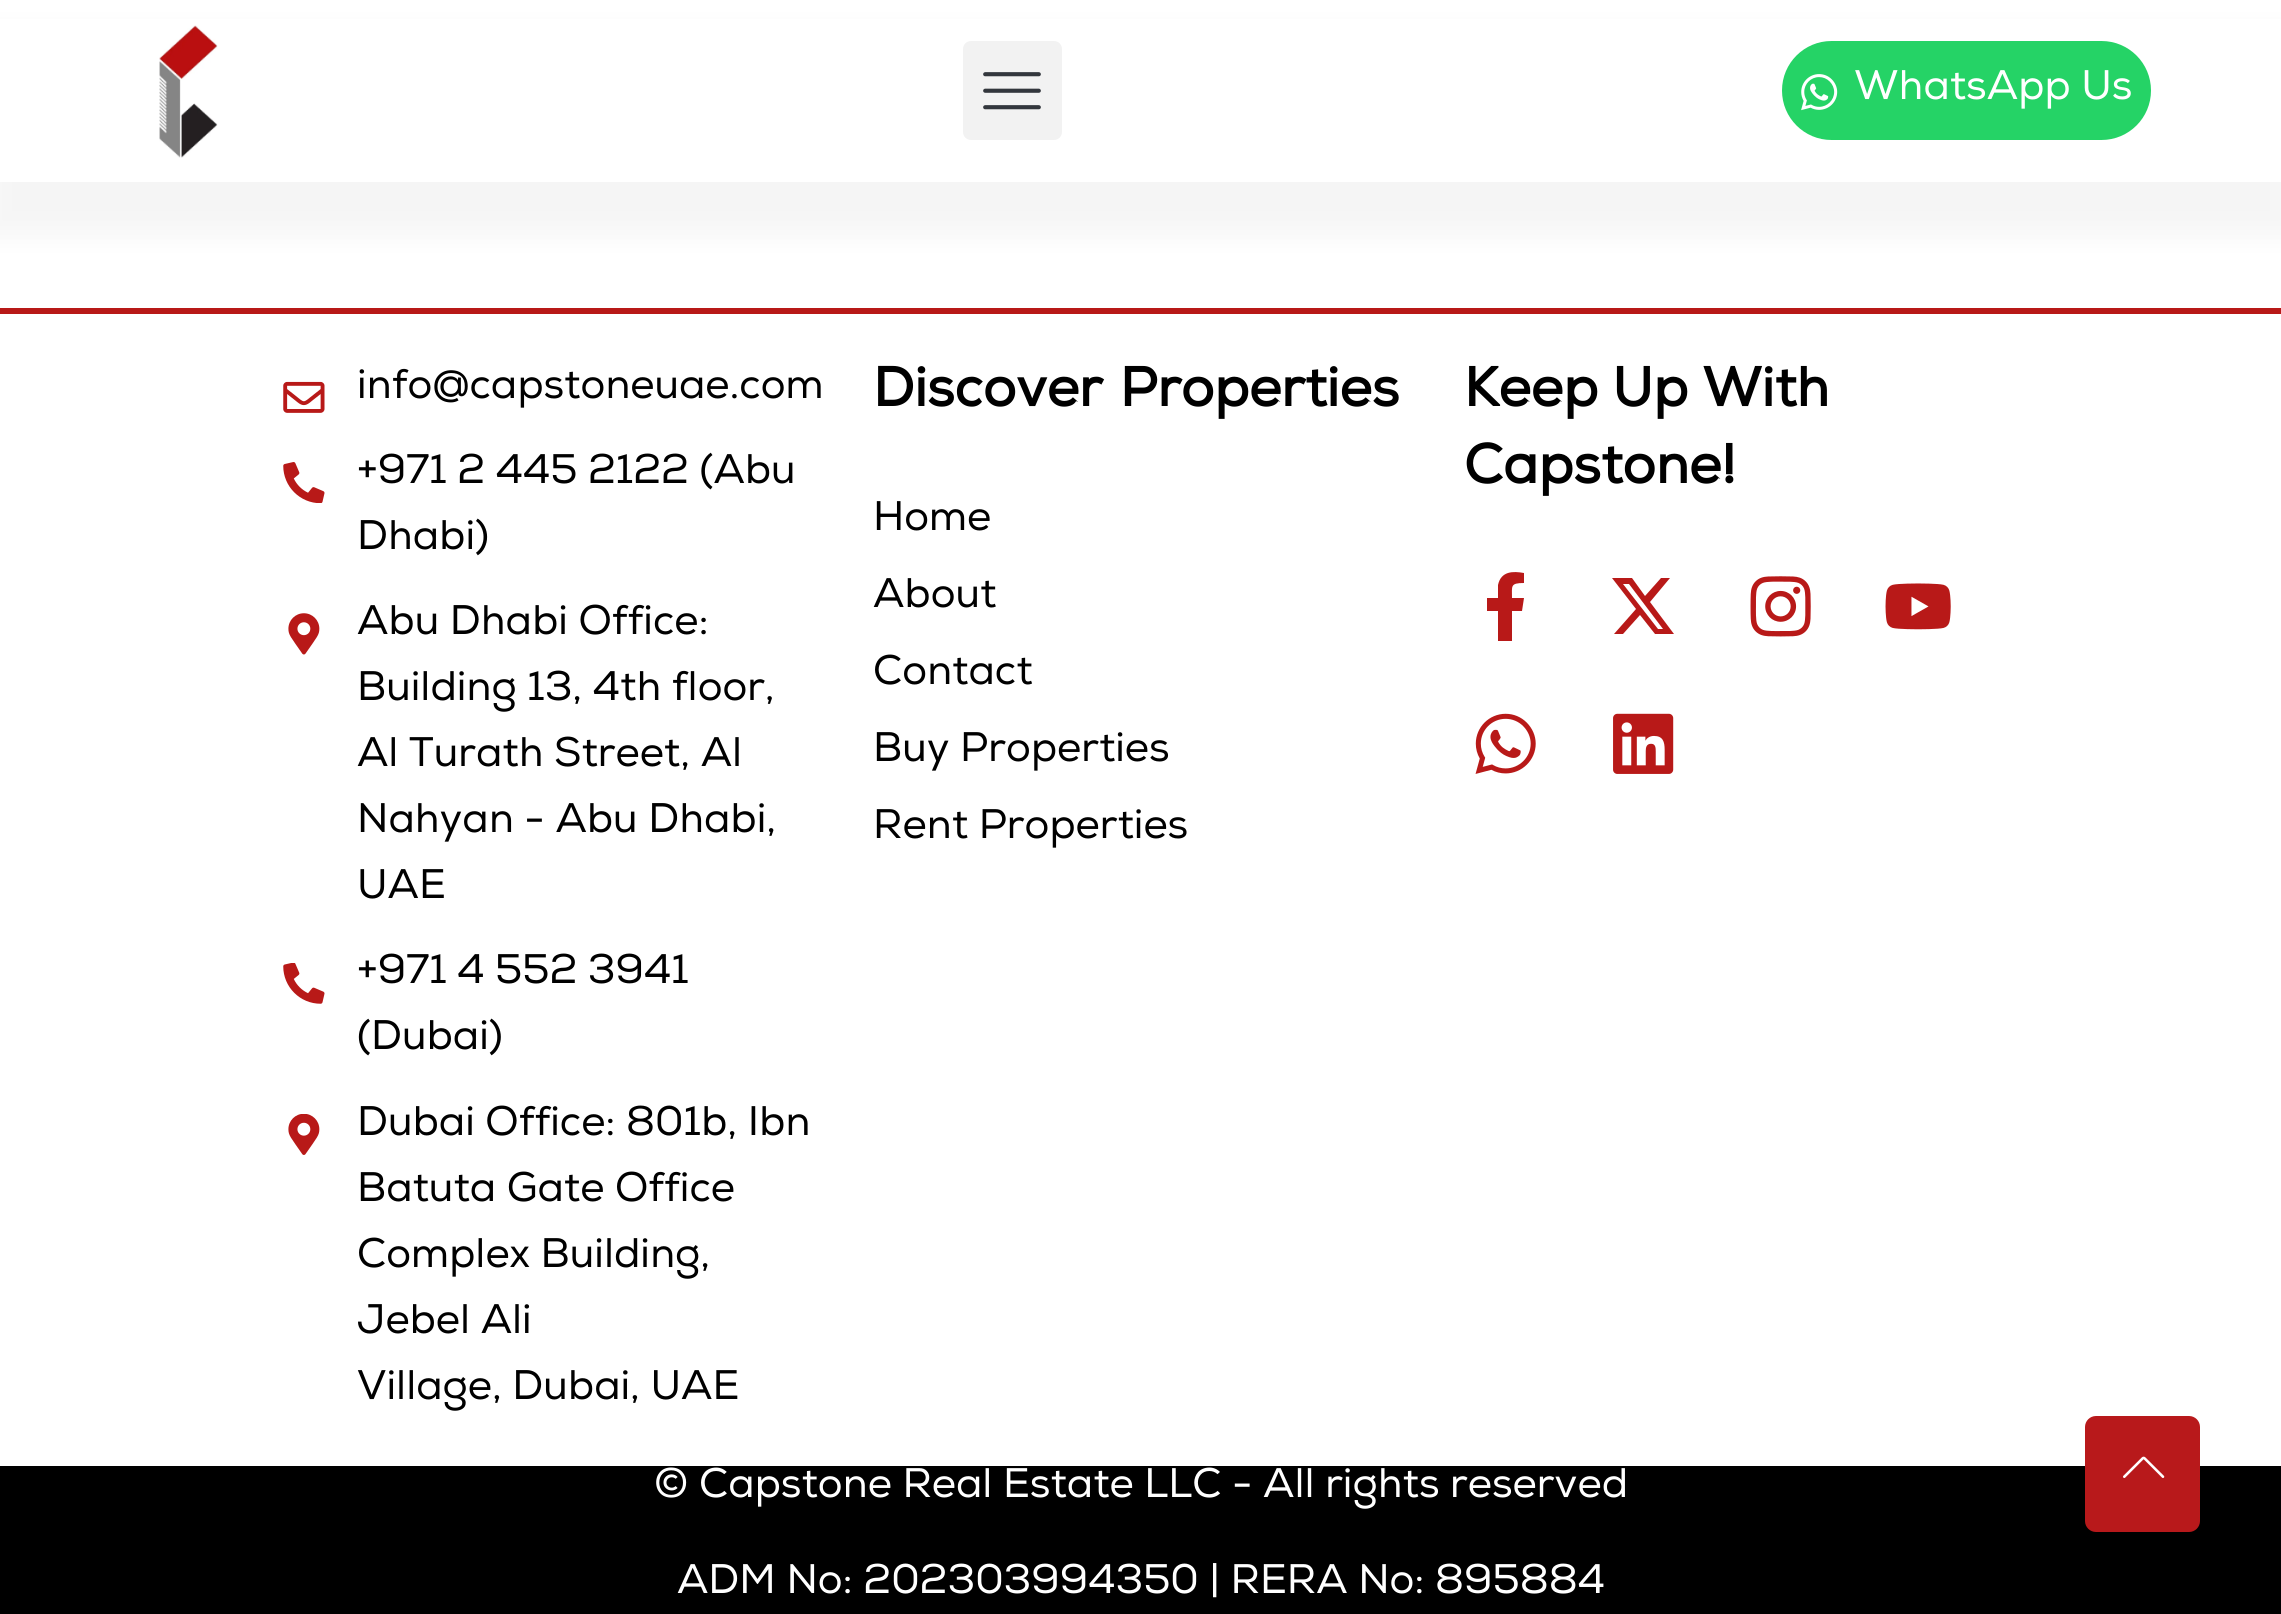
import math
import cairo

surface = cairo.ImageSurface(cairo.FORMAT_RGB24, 2281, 1614)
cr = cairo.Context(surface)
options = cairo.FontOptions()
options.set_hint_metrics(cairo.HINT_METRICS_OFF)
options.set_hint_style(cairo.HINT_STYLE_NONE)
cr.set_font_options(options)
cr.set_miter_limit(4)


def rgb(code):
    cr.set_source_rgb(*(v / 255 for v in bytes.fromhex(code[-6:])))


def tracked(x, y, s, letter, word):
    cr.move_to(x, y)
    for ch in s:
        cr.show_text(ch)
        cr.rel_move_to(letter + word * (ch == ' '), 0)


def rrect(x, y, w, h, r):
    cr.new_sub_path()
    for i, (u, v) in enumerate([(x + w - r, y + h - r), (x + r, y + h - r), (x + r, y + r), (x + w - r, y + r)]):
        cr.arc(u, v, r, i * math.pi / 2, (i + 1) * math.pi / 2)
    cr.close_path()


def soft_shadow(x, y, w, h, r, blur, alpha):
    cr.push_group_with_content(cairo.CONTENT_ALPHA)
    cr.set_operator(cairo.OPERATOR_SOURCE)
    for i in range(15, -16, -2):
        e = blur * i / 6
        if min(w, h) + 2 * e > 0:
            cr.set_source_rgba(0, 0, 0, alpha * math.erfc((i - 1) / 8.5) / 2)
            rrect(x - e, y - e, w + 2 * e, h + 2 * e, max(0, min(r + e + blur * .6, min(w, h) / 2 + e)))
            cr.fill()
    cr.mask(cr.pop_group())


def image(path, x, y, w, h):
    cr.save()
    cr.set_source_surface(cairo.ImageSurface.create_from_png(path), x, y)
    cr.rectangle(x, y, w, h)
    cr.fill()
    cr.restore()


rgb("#ffffff")
cr.paint()
rgb("#000000")
soft_shadow(-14, 28, 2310, 209, 0, 14, 0.04)
rgb("#ffffff")
cr.rectangle(0, 19, 2281, 163)
cr.fill()
image("img/1.png", 159, 25, 59, 133)
rgb("#f2f2f2")
rrect(963, 41, 99, 99, 8)
cr.fill()
image("img/2.png", 983, 72, 58, 38)
rgb("#25d366")
rrect(1782, 41, 369, 99, 49.5)
cr.fill()
image("img/3.png", 1801, 74, 37, 37)
rgb("#b81918")
cr.rectangle(0, 308, 2281, 6)
cr.fill()
image("img/4.png", 283, 381, 42, 32)
image("img/5.png", 283, 462, 42, 41)
image("img/6.png", 288, 613, 32, 42)
image("img/7.png", 283, 963, 42, 41)
image("img/8.png", 288, 1114, 32, 41)
cr.new_path()
cr.move_to(1522, 611)
cr.line_to(1524, 598)
cr.line_to(1512, 598)
cr.curve_to(1512, 586, 1510, 583, 1524, 583)
cr.line_to(1524, 573)
cr.curve_to(1513, 571, 1501, 571, 1498, 585)
cr.line_to(1498, 598)
cr.line_to(1487, 598)
cr.line_to(1487, 611)
cr.line_to(1498, 611)
cr.line_to(1498, 641)
cr.line_to(1512, 641)
cr.line_to(1512, 611)
cr.close_path()
cr.fill()
cr.new_path()
cr.move_to(1661, 578)
cr.line_to(1670, 578)
cr.line_to(1650, 602)
cr.line_to(1674, 634)
cr.line_to(1655, 634)
cr.line_to(1640, 615)
cr.line_to(1623, 634)
cr.line_to(1614, 634)
cr.line_to(1636, 609)
cr.line_to(1612, 578)
cr.line_to(1632, 578)
cr.line_to(1645, 596)
cr.close_path()
cr.move_to(1658, 629)
cr.line_to(1663, 629)
cr.line_to(1629, 584)
cr.line_to(1623, 584)
cr.close_path()
cr.fill()
image("img/9.png", 1750, 576, 61, 61)
image("img/10.png", 1885, 583, 66, 47)
image("img/11.png", 1475, 713, 61, 61)
image("img/12.png", 1613, 713, 61, 61)
rgb("#000000")
cr.rectangle(0, 1466, 2281, 148)
cr.fill()
rgb("#b8191b")
rrect(2086.5, 1417.5, 112, 113, 9.5)
cr.fill_preserve()
cr.set_line_width(3)
cr.stroke()
image("img/13.png", 2123, 1456, 42, 22)
cr.select_font_face("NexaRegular")
cr.set_font_size(41.25)
rgb("#ffffff")
cr.move_to(1854, 99)
cr.show_text("WhatsApp Us")
rgb("#000000")
for x, y, s in [
    (357, 398, "info@capstoneuae.com"),
    (357, 483, "+971 2 445 2122 (Abu"),
    (357, 549, "Dhabi)"),
    (357, 634, "Abu Dhabi Office:"),
    (357, 700, "Building 13, 4th floor,"),
    (357, 766, "Al Turath Street, Al"),
    (357, 832, "Nahyan - Abu Dhabi,"),
    (357, 898, "UAE"),
    (357, 983, "+971 4 552 3941"),
    (357, 1049, "(Dubai)"),
    (357, 1135, "Dubai Office: 801b, Ibn"),
    (357, 1201, "Batuta Gate Office"),
    (357, 1267, "Complex Building,"),
    (357, 1333, "Jebel Ali"),
    (357, 1399, "Village, Dubai, UAE"),
]:
    cr.move_to(x, y)
    cr.show_text(s)
cr.select_font_face("NexaRegular", cairo.FONT_SLANT_NORMAL, cairo.FONT_WEIGHT_BOLD)
cr.set_font_size(55)
tracked(873, 406, "Discover Properties", 0, 3)
cr.select_font_face("NexaRegular")
cr.set_font_size(41.25)
for x, y, s in [
    (873, 530, "Home"),
    (873, 607, "About"),
    (873, 684, "Contact"),
    (873, 761, "Buy Properties"),
    (873, 838, "Rent Properties"),
]:
    cr.move_to(x, y)
    cr.show_text(s)
cr.select_font_face("NexaRegular", cairo.FONT_SLANT_NORMAL, cairo.FONT_WEIGHT_BOLD)
cr.set_font_size(55)
cr.move_to(1464, 406)
cr.show_text("Keep Up With")
cr.move_to(1464, 483)
cr.show_text("Capstone!")
cr.select_font_face("NexaRegular")
cr.set_font_size(41.25)
rgb("#ffffff")
cr.move_to(654, 1497)
cr.show_text("© Capstone Real Estate LLC - All rights reserved")
cr.move_to(677, 1593)
cr.show_text("ADM No: 202303994350 | RERA No: 895884")
surface.write_to_png("page.png")
